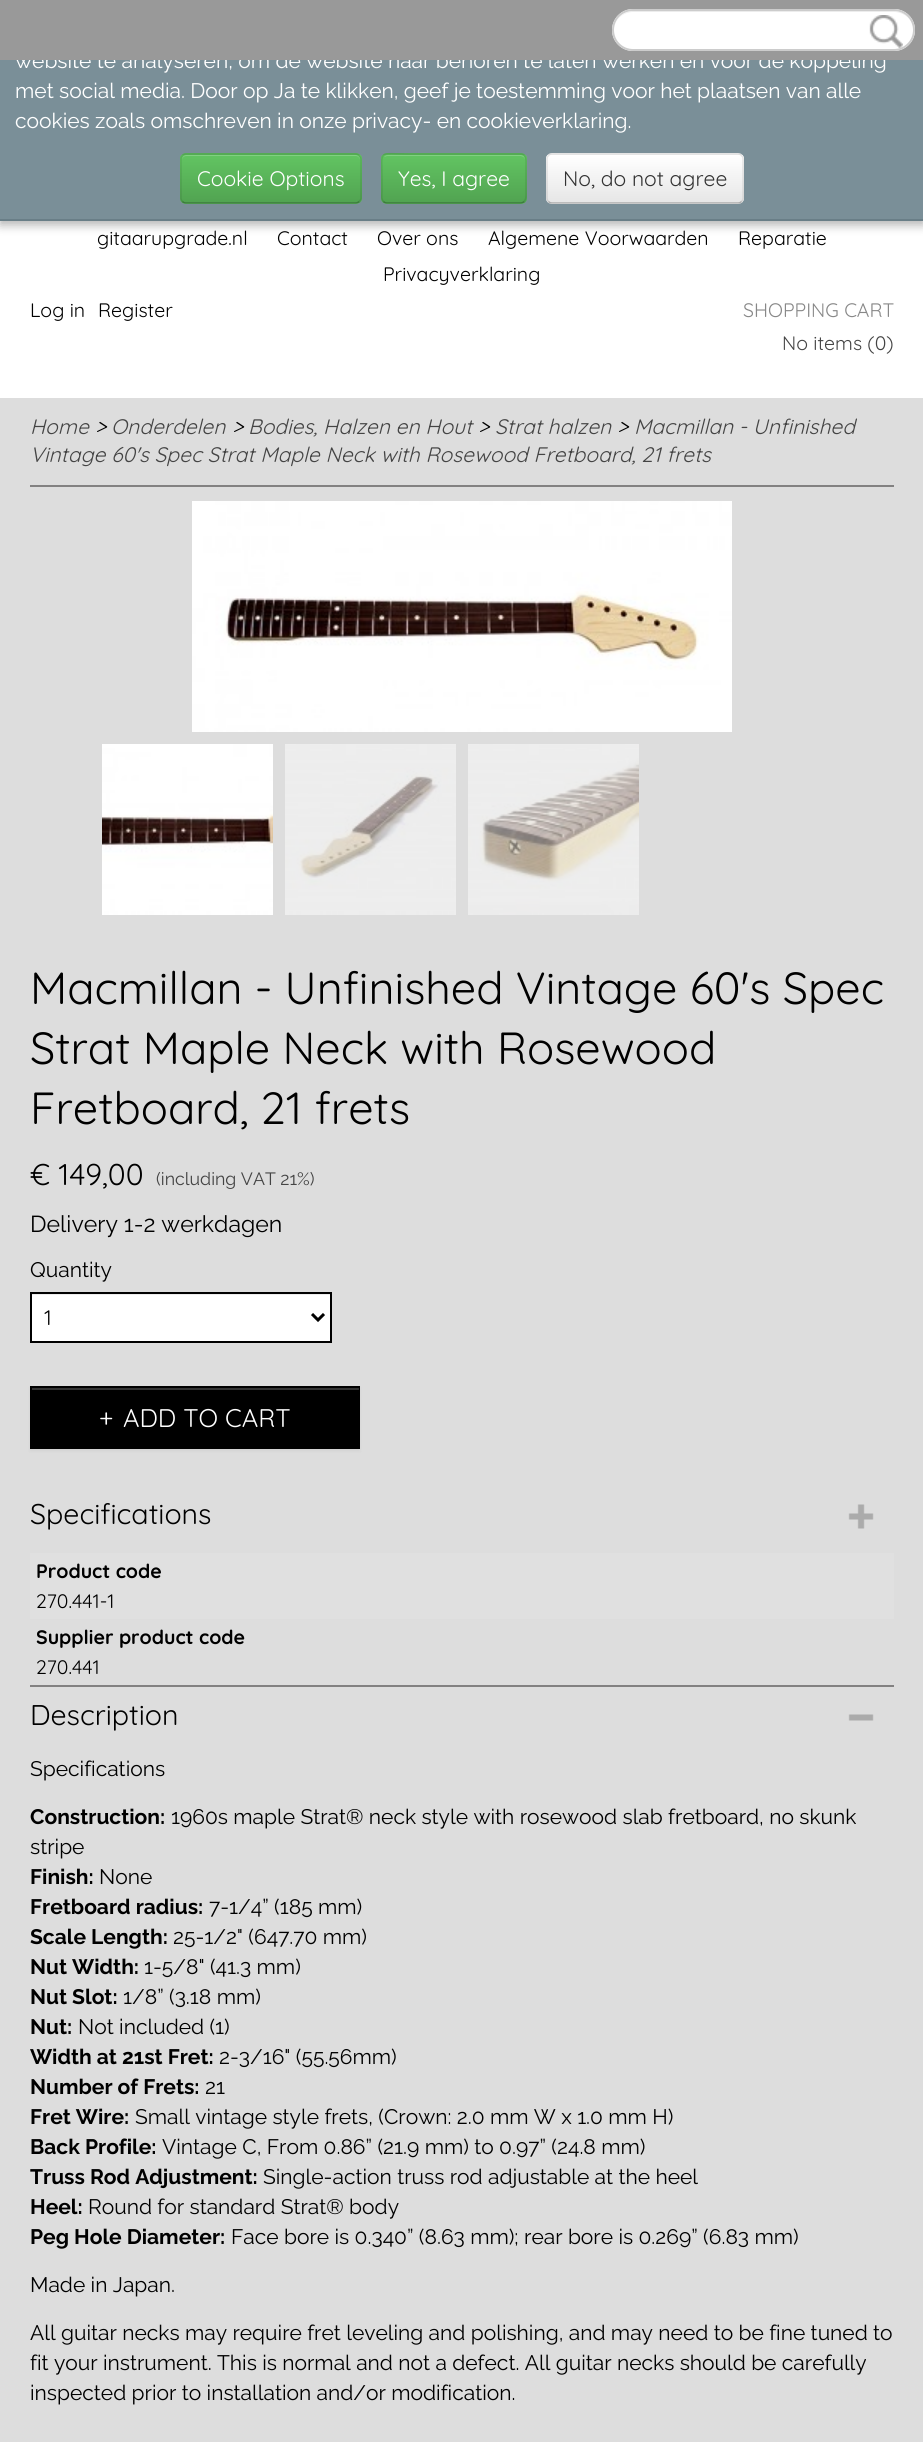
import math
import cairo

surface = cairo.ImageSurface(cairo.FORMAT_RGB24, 923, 2442)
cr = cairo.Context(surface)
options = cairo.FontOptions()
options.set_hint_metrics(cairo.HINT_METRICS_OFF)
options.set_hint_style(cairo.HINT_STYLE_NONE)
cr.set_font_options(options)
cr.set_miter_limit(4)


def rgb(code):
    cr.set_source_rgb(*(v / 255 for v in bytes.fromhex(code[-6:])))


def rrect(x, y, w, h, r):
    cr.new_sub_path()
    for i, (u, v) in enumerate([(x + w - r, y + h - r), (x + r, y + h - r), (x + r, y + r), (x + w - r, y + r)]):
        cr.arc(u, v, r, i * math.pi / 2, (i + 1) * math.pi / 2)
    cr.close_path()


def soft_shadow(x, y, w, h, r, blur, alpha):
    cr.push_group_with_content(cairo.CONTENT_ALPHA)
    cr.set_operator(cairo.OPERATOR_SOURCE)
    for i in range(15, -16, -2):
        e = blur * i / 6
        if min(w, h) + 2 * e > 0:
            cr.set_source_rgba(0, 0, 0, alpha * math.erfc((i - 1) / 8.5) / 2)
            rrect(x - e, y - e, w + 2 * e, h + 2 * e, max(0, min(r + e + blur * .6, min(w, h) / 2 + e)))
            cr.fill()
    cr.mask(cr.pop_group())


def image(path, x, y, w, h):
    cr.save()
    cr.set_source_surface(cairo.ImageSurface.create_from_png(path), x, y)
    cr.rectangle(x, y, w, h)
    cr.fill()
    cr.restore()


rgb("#ffffff")
cr.paint()
rgb("#000000")
soft_shadow(0, 5, 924, 220, 0, 5, 0.3)
rgb("#7a8f98")
cr.rectangle(0, 60, 923, 159)
cr.fill()
rgb("#697e87")
cr.rectangle(0, 219, 923, 2)
cr.fill()
rgb("#5bb75b")
rrect(180, 153, 182, 51, 6)
cr.fill()
cr.save()
rrect(180, 153, 182, 51, 6)
cr.clip()
gradient = cairo.LinearGradient(271, 155, 271, 203)
gradient.add_color_stop_rgba(0, 0.384, 0.769, 0.384, 1)
gradient.add_color_stop_rgba(1, 0.318, 0.639, 0.318, 1)
cr.set_source(gradient)
cr.rectangle(180, 155, 182, 48)
cr.fill()
cr.restore()
rgb("#81d081")
cr.new_path()
cr.move_to(186, 156)
cr.line_to(356, 156)
cr.curve_to(358, 156, 360, 158, 360, 160)
cr.curve_to(360, 157, 358, 155, 355, 155)
cr.line_to(187, 155)
cr.curve_to(184, 155, 182, 157, 182, 160)
cr.curve_to(182, 158, 184, 156, 186, 156)
cr.close_path()
cr.fill()
cr.new_path()
cr.move_to(359, 201.5)
cr.curve_to(358, 202.5, 357, 203, 355.5, 203)
cr.line_to(186, 203)
cr.curve_to(184.5, 203, 183.5, 202.5, 182.5, 201.5)
cr.set_source_rgba(0, 0, 0, 0.25)
cr.set_line_width(1.5)
cr.stroke()
cr.new_path()
cr.move_to(182.5, 201.5)
cr.curve_to(181.5, 200.5, 181, 199.5, 181, 198)
cr.line_to(181, 159)
cr.curve_to(181, 157.5, 181.5, 156.5, 182.5, 155.5)
cr.curve_to(183.5, 154.5, 184.5, 154, 186, 154)
cr.line_to(355.5, 154)
cr.curve_to(357, 154, 358, 154.5, 359, 155.5)
cr.curve_to(360, 156.5, 361, 157.5, 361, 159)
cr.line_to(361, 198)
cr.curve_to(361, 199.5, 360, 200.5, 359, 201.5)
cr.set_source_rgba(0, 0, 0, 0.1)
cr.stroke()
rgb("#5bb75b")
rrect(381, 153, 146, 51, 6)
cr.fill()
cr.save()
rrect(381, 153, 146, 51, 6)
cr.clip()
gradient = cairo.LinearGradient(454, 155, 454, 203)
gradient.add_color_stop_rgba(0, 0.384, 0.769, 0.384, 1)
gradient.add_color_stop_rgba(1, 0.318, 0.639, 0.318, 1)
cr.set_source(gradient)
cr.rectangle(381, 155, 146, 48)
cr.fill()
cr.restore()
rgb("#81d081")
cr.new_path()
cr.move_to(387, 156)
cr.line_to(520, 156)
cr.curve_to(523, 156, 525, 158, 525, 160)
cr.curve_to(525, 157, 523, 155, 520, 155)
cr.line_to(388, 155)
cr.curve_to(386, 155, 385, 156, 384, 157)
cr.close_path()
cr.fill()
cr.new_path()
cr.move_to(524, 201.5)
cr.curve_to(523, 202.5, 522, 203, 520.5, 203)
cr.line_to(387, 203)
cr.curve_to(385.5, 203, 384.5, 202.5, 383.5, 201.5)
cr.set_source_rgba(0, 0, 0, 0.25)
cr.stroke()
cr.new_path()
cr.move_to(383.5, 201.5)
cr.curve_to(381, 199, 382, 194.5, 382, 191.5)
cr.line_to(382, 178.5)
cr.curve_to(382, 148.5, 377.5, 154, 409, 154)
cr.line_to(520.5, 154)
cr.curve_to(527, 154, 526, 161.5, 526, 165.5)
cr.line_to(526, 191.5)
cr.curve_to(526, 194.5, 526.5, 199, 524, 201.5)
cr.set_source_rgba(0, 0, 0, 0.1)
cr.stroke()
rgb("#f5f5f5")
rrect(546, 153, 198, 51, 6)
cr.fill()
cr.save()
rrect(546, 153, 198, 51, 6)
cr.clip()
gradient = cairo.LinearGradient(645, 155, 645, 203)
gradient.add_color_stop_rgba(0, 1, 1, 1, 1)
gradient.add_color_stop_rgba(1, 0.902, 0.902, 0.902, 1)
cr.set_source(gradient)
cr.rectangle(546, 155, 198, 48)
cr.fill()
cr.restore()
cr.set_source_rgba(1, 1, 1, 0.2)
cr.new_path()
cr.move_to(552, 156)
cr.line_to(738, 156)
cr.curve_to(740, 156, 742, 158, 742, 160)
cr.line_to(742, 201)
cr.curve_to(743, 200, 743, 199, 743, 198)
cr.line_to(743, 160)
cr.curve_to(743, 157, 741, 155, 738, 155)
cr.line_to(553, 155)
cr.curve_to(550, 155, 548, 157, 548, 160)
cr.curve_to(548, 158, 550, 156, 552, 156)
cr.close_path()
cr.fill()
cr.new_path()
cr.move_to(741.5, 201.5)
cr.curve_to(740.5, 202.5, 739.5, 203, 738, 203)
cr.line_to(552, 203)
cr.curve_to(550.5, 203, 549.5, 202.5, 548.5, 201.5)
cr.set_source_rgba(0, 0, 0, 0.25)
cr.stroke()
cr.new_path()
cr.move_to(548.5, 201.5)
cr.curve_to(547.5, 200.5, 547, 199.5, 547, 198)
cr.line_to(547, 159)
cr.curve_to(547, 157.5, 547.5, 156.5, 548.5, 155.5)
cr.curve_to(549.5, 154.5, 550.5, 154, 552, 154)
cr.line_to(738, 154)
cr.curve_to(739.5, 154, 740.5, 154.5, 741.5, 155.5)
cr.curve_to(742.5, 156.5, 743, 157.5, 743, 159)
cr.line_to(743, 198)
cr.curve_to(743, 199.5, 742.5, 200.5, 741.5, 201.5)
cr.set_source_rgba(0, 0, 0, 0.1)
cr.stroke()
rgb("#dddddd")
cr.rectangle(0, 398, 923, 2044)
cr.fill()
rgb("#828181")
cr.rectangle(30, 485, 864, 2)
cr.fill()
image("img/2.png", 192, 501, 540, 231)
image("img/3.png", 102, 744, 171, 171)
image("img/4.png", 285, 744, 171, 171)
image("img/5.png", 468, 744, 171, 171)
rgb("#ffffff")
cr.rectangle(32, 1295, 298, 46)
cr.fill()
rgb("#ececec")
cr.rectangle(32, 1294, 298, 1)
cr.fill()
cr.rectangle(31, 1293, 300, 49)
rgb("#000000")
cr.set_line_width(2)
cr.stroke()
cr.new_path()
cr.move_to(312, 1314)
cr.line_to(318, 1320)
cr.line_to(324, 1314)
cr.set_line_width(3)
cr.stroke()
rgb("#000000")
soft_shadow(30, 1388, 330, 63, 0, 1.5, 0.05)
rgb("#000000")
cr.rectangle(30, 1386, 330, 63)
cr.fill()
rgb("#333333")
cr.rectangle(32, 1388, 327, 2)
cr.fill()
cr.set_source_rgba(0, 0, 0, 0.1)
cr.new_path()
cr.move_to(360, 1386)
cr.line_to(360, 1449)
cr.line_to(358, 1448)
cr.line_to(358, 1388)
cr.close_path()
cr.fill()
rgb("#828181")
cr.rectangle(30, 1685, 864, 2)
cr.fill()
image("img/6.png", 848, 1504, 26, 25)
rgb("#e0e0e0")
cr.rectangle(30, 1553, 864, 66)
cr.fill()
image("img/7.png", 848, 1714, 26, 7)
cr.select_font_face("Raleway")
cr.set_font_size(21)
rgb("#ffffff")
cr.move_to(15, 68)
cr.show_text("website te analyseren, om de website naar behoren te laten werken en voor de koppeling")
rgb("#999999")
cr.rectangle(0, 0, 923, 60)
cr.fill()
rgb("#ffffff")
rrect(612, 9, 303, 42, 21)
cr.fill()
rgb("#ececec")
cr.new_path()
cr.move_to(633, 12)
cr.line_to(894, 12)
cr.curve_to(905, 12, 914, 21, 914, 31)
cr.curve_to(914, 20, 905, 11, 894, 11)
cr.line_to(634, 11)
cr.curve_to(623, 11, 614, 20, 614, 31)
cr.curve_to(614, 21, 622, 12, 633, 12)
cr.close_path()
cr.fill()
rrect(613, 10, 301, 40, 20)
rgb("#cccccc")
cr.set_line_width(2)
cr.stroke()
image("img/1.png", 869, 15, 34, 33)
rgb("#ffffff")
cr.move_to(15, 98)
cr.show_text("met social media. Door op Ja te klikken, geef je toestemming voor het plaatsen van alle")
cr.move_to(15, 128)
cr.show_text("cookies zoals omschreven in onze privacy- en cookieverklaring.")
cr.select_font_face("Quicksand")
cr.move_to(197, 186)
cr.show_text("Cookie Options")
cr.move_to(398, 186)
cr.show_text("Yes, I agree")
rgb("#333333")
cr.move_to(563, 186)
cr.show_text("No, do not agree")
cr.set_font_size(19.5)
rgb("#000000")
for x, y, s in [
    (97, 245, "gitaarupgrade.nl"),
    (277, 245, "Contact"),
    (377, 245, "Over ons"),
    (488, 245, "Algemene Voorwaarden"),
    (738, 245, "Reparatie"),
    (383, 281, "Privacyverklaring"),
    (30, 317, "Log in"),
    (98, 317, "Register"),
]:
    cr.move_to(x, y)
    cr.show_text(s)
rgb("#888888")
cr.move_to(743, 317)
cr.show_text("SHOPPING CART")
rgb("#444444")
cr.move_to(782, 350)
cr.show_text("No items (0)")
cr.select_font_face("Quicksand", cairo.FONT_SLANT_ITALIC)
cr.set_font_size(21)
cr.move_to(30, 434)
cr.show_text("Home")
rgb("#000000")
cr.move_to(95, 434)
cr.show_text(">")
rgb("#444444")
cr.move_to(111, 434)
cr.show_text("Onderdelen")
rgb("#000000")
cr.move_to(232, 434)
cr.show_text(">")
rgb("#444444")
cr.move_to(248, 434)
cr.show_text("Bodies, Halzen en Hout")
rgb("#000000")
cr.move_to(478, 434)
cr.show_text(">")
rgb("#444444")
cr.move_to(495, 434)
cr.show_text("Strat halzen")
rgb("#000000")
cr.move_to(617, 434)
cr.show_text(">")
rgb("#444444")
cr.move_to(634, 434)
cr.show_text("Macmillan - Unfinished")
cr.move_to(30, 462)
cr.show_text("Vintage 60's Spec Strat Maple Neck with Rosewood Fretboard, 21 frets")
cr.select_font_face("Quicksand")
cr.set_font_size(45)
rgb("#000000")
for x, y, s in [
    (30, 1004, "Macmillan - Unfinished Vintage 60's Spec"),
    (30, 1064, "Strat Maple Neck with Rosewood"),
    (30, 1124, "Fretboard, 21 frets"),
]:
    cr.move_to(x, y)
    cr.show_text(s)
cr.set_font_size(30)
cr.move_to(30, 1185)
cr.show_text("€ 149,00")
cr.select_font_face("Raleway")
cr.set_font_size(17.75)
rgb("#444444")
cr.move_to(156, 1185)
cr.show_text("(including VAT 21%)")
cr.set_font_size(23.1)
rgb("#000000")
cr.move_to(30, 1232)
cr.show_text("Delivery 1-2 werkdagen")
cr.set_font_size(21)
cr.move_to(30, 1277)
cr.show_text("Quantity")
cr.select_font_face("Quicksand")
cr.move_to(44, 1325)
cr.show_text("1")
cr.set_font_size(25.5)
rgb("#ffffff")
cr.move_to(99, 1427)
cr.show_text("+")
cr.move_to(123, 1427)
cr.show_text("ADD TO CART")
cr.set_font_size(28.5)
rgb("#000000")
cr.move_to(30, 1524)
cr.show_text("Specifications")
cr.select_font_face("Quicksand", cairo.FONT_SLANT_NORMAL, cairo.FONT_WEIGHT_BOLD)
cr.set_font_size(19.5)
cr.move_to(36, 1578)
cr.show_text("Product code")
cr.select_font_face("Quicksand")
cr.move_to(36, 1608)
cr.show_text("270.441-1")
cr.select_font_face("Quicksand", cairo.FONT_SLANT_NORMAL, cairo.FONT_WEIGHT_BOLD)
cr.move_to(36, 1644)
cr.show_text("Supplier product code")
cr.select_font_face("Quicksand")
cr.move_to(36, 1674)
cr.show_text("270.441")
cr.set_font_size(28.5)
cr.move_to(30, 1725)
cr.show_text("Description")
cr.select_font_face("Raleway")
cr.set_font_size(21)
cr.move_to(30, 1776)
cr.show_text("Specifications")
cr.select_font_face("Raleway", cairo.FONT_SLANT_NORMAL, cairo.FONT_WEIGHT_BOLD)
cr.move_to(30, 1824)
cr.show_text("Construction:")
cr.select_font_face("Raleway")
cr.move_to(171, 1824)
cr.show_text("1960s maple Strat® neck style with rosewood slab fretboard, no skunk")
cr.move_to(30, 1854)
cr.show_text("stripe")
cr.select_font_face("Raleway", cairo.FONT_SLANT_NORMAL, cairo.FONT_WEIGHT_BOLD)
cr.move_to(30, 1884)
cr.show_text("Finish:")
cr.select_font_face("Raleway")
cr.move_to(99, 1884)
cr.show_text("None")
cr.select_font_face("Raleway", cairo.FONT_SLANT_NORMAL, cairo.FONT_WEIGHT_BOLD)
cr.move_to(30, 1914)
cr.show_text("Fretboard radius:")
cr.select_font_face("Raleway")
cr.move_to(209, 1914)
cr.show_text("7-1/4” (185 mm)")
cr.select_font_face("Raleway", cairo.FONT_SLANT_NORMAL, cairo.FONT_WEIGHT_BOLD)
cr.move_to(30, 1944)
cr.show_text("Scale Length:")
cr.select_font_face("Raleway")
cr.move_to(173, 1944)
cr.show_text("25-1/2\" (647.70 mm)")
cr.select_font_face("Raleway", cairo.FONT_SLANT_NORMAL, cairo.FONT_WEIGHT_BOLD)
cr.move_to(30, 1974)
cr.show_text("Nut Width:")
cr.select_font_face("Raleway")
cr.move_to(144, 1974)
cr.show_text("1-5/8\" (41.3 mm)")
cr.select_font_face("Raleway", cairo.FONT_SLANT_NORMAL, cairo.FONT_WEIGHT_BOLD)
cr.move_to(30, 2004)
cr.show_text("Nut Slot:")
cr.select_font_face("Raleway")
cr.move_to(123, 2004)
cr.show_text("1/8” (3.18 mm)")
cr.select_font_face("Raleway", cairo.FONT_SLANT_NORMAL, cairo.FONT_WEIGHT_BOLD)
cr.move_to(30, 2034)
cr.show_text("Nut:")
cr.select_font_face("Raleway")
cr.move_to(78, 2034)
cr.show_text("Not included (1)")
cr.select_font_face("Raleway", cairo.FONT_SLANT_NORMAL, cairo.FONT_WEIGHT_BOLD)
cr.move_to(30, 2064)
cr.show_text("Width at 21st Fret:")
cr.select_font_face("Raleway")
cr.move_to(219, 2064)
cr.show_text("2-3/16\" (55.56mm)")
cr.select_font_face("Raleway", cairo.FONT_SLANT_NORMAL, cairo.FONT_WEIGHT_BOLD)
cr.move_to(30, 2094)
cr.show_text("Number of Frets:")
cr.select_font_face("Raleway")
cr.move_to(205, 2094)
cr.show_text("21")
cr.select_font_face("Raleway", cairo.FONT_SLANT_NORMAL, cairo.FONT_WEIGHT_BOLD)
cr.move_to(30, 2124)
cr.show_text("Fret Wire:")
cr.select_font_face("Raleway")
cr.move_to(135, 2124)
cr.show_text("Small vintage style frets, (Crown: 2.0 mm W x 1.0 mm H)")
cr.select_font_face("Raleway", cairo.FONT_SLANT_NORMAL, cairo.FONT_WEIGHT_BOLD)
cr.move_to(30, 2154)
cr.show_text("Back Profile:")
cr.select_font_face("Raleway")
cr.move_to(162, 2154)
cr.show_text("Vintage C, From 0.86” (21.9 mm) to 0.97” (24.8 mm)")
cr.select_font_face("Raleway", cairo.FONT_SLANT_NORMAL, cairo.FONT_WEIGHT_BOLD)
cr.move_to(30, 2184)
cr.show_text("Truss Rod Adjustment:")
cr.select_font_face("Raleway")
cr.move_to(263, 2184)
cr.show_text("Single-action truss rod adjustable at the heel")
cr.select_font_face("Raleway", cairo.FONT_SLANT_NORMAL, cairo.FONT_WEIGHT_BOLD)
cr.move_to(30, 2214)
cr.show_text("Heel:")
cr.select_font_face("Raleway")
cr.move_to(88, 2214)
cr.show_text("Round for standard Strat® body")
cr.select_font_face("Raleway", cairo.FONT_SLANT_NORMAL, cairo.FONT_WEIGHT_BOLD)
cr.move_to(30, 2244)
cr.show_text("Peg Hole Diameter:")
cr.select_font_face("Raleway")
for x, y, s in [
    (231, 2244, "Face bore is 0.340” (8.63 mm); rear bore is 0.269” (6.83 mm)"),
    (30, 2292, "Made in Japan."),
    (30, 2340, "All guitar necks may require fret leveling and polishing, and may need to be fine tuned to"),
    (30, 2370, "fit your instrument. This is normal and not a defect. All guitar necks should be carefully"),
    (30, 2400, "inspected prior to installation and/or modification."),
]:
    cr.move_to(x, y)
    cr.show_text(s)
surface.write_to_png("page.png")
